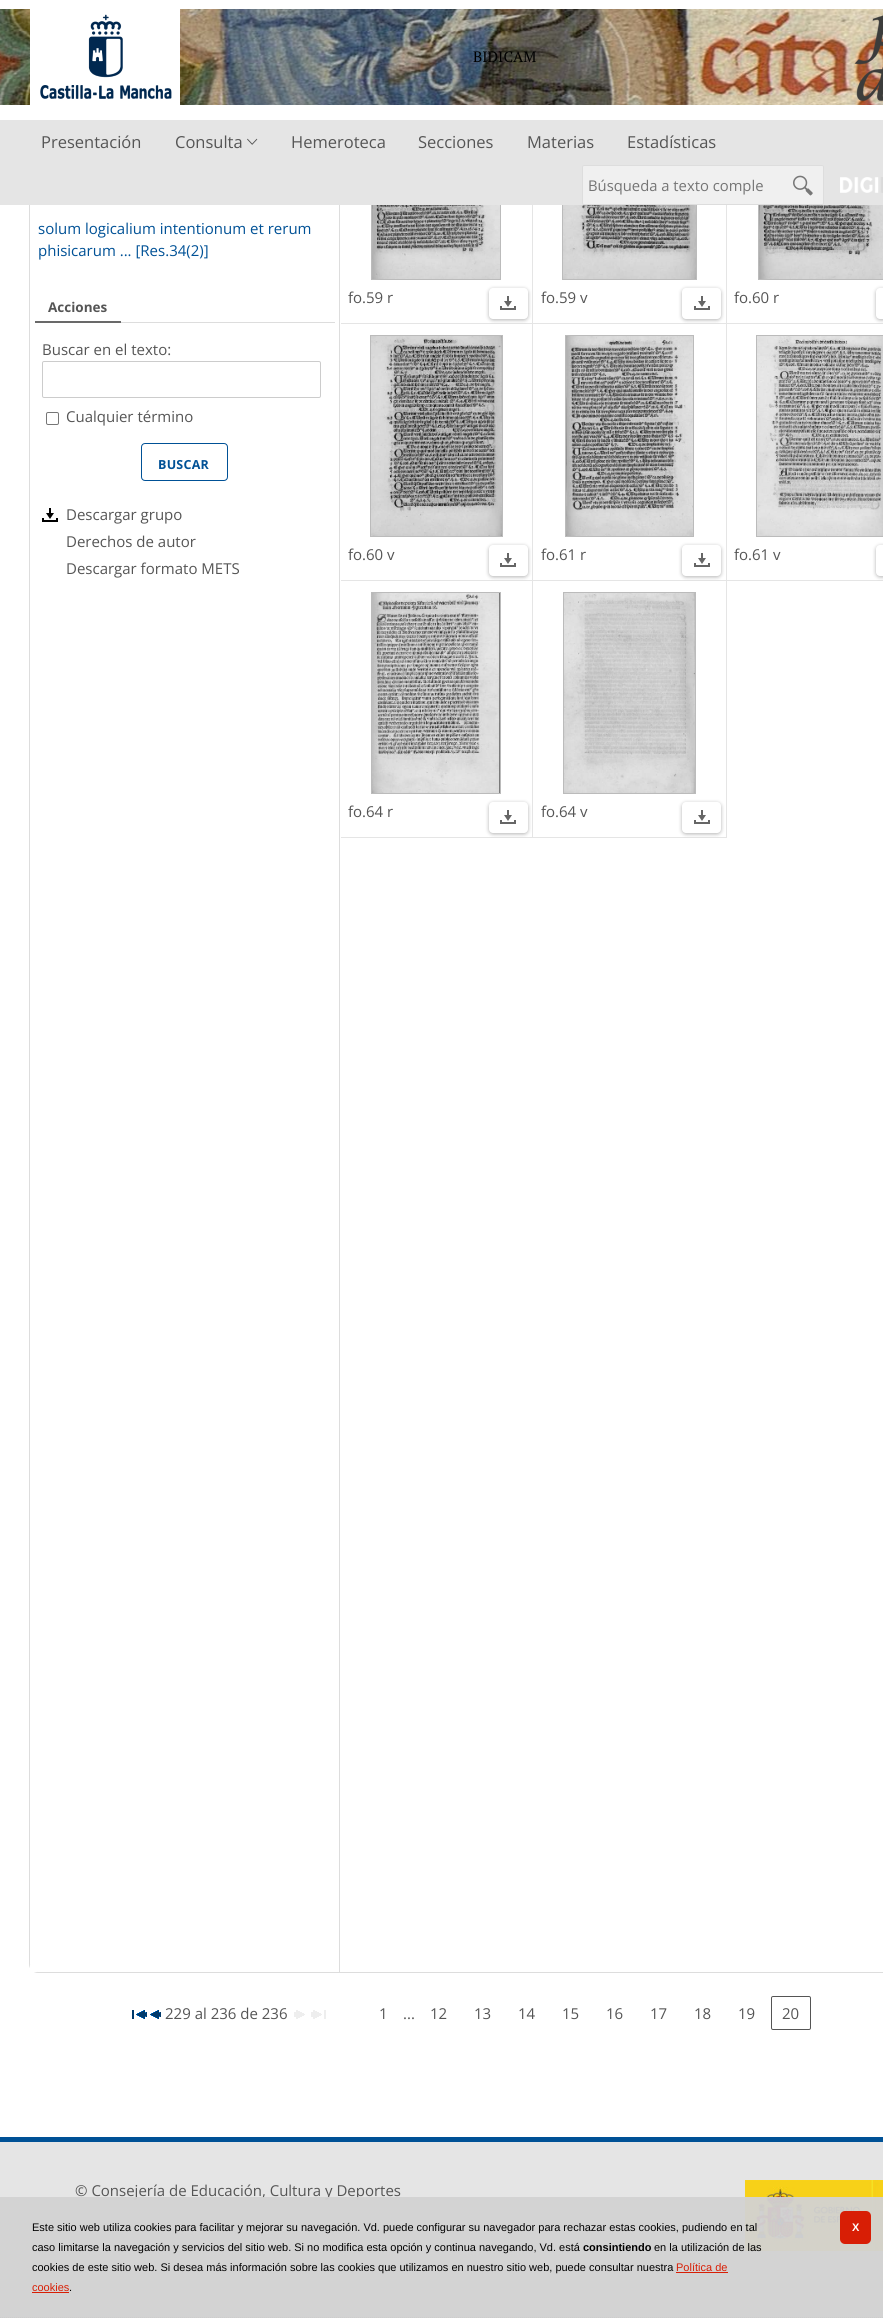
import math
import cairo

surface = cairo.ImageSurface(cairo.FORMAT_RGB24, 883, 2318)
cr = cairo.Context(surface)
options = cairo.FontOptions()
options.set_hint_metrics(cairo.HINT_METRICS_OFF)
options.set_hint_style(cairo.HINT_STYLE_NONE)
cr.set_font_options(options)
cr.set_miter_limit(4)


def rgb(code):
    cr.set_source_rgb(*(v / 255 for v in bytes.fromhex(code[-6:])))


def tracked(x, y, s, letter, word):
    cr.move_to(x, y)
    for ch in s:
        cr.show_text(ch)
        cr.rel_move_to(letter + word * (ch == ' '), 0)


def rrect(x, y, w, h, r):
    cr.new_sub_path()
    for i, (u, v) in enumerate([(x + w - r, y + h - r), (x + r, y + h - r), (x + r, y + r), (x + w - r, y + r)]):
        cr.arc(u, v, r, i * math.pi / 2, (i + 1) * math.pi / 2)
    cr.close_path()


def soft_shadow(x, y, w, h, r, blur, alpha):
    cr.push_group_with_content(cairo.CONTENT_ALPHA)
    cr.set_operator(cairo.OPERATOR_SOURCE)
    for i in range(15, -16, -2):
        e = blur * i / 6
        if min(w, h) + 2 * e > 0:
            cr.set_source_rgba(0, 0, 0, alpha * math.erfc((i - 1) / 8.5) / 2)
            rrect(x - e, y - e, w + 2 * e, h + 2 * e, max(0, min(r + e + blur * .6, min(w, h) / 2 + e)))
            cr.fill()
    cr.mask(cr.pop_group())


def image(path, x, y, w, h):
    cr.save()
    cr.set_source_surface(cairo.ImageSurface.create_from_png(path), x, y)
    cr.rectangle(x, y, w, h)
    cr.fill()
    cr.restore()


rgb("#ffffff")
cr.paint()
rrect(29.5, 66.5, 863, 1906, 8.5)
rgb("#dddddd")
cr.set_line_width(1)
cr.stroke()
cr.rectangle(371.5, 78.5, 129, 201)
rgb("#bbbbbb")
cr.stroke()
cr.rectangle(562.5, 78.5, 134, 201)
cr.stroke()
cr.rectangle(758.5, 78.5, 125, 201)
cr.stroke()
rgb("#ffffff")
cr.rectangle(29, 66, 854, 54)
cr.fill()
image("img/1.png", 0, 9, 883, 96)
image("img/2.png", 30, 9, 150, 96)
image("img/3.png", 854, 15, 29, 86)
rgb("#e5e5e5")
cr.rectangle(0, 120, 883, 85)
cr.fill()
image("img/4.png", 247, 138, 11, 7)
rgb("#f0f0f0")
rrect(582.5, 165.5, 241, 39, 1.5)
cr.fill_preserve()
rgb("#dddddd")
cr.stroke()
image("img/5.png", 793, 175, 20, 21)
image("img/6.png", 840, 177, 43, 16)
for x, y, w, h, color in [
    (30, 1965, 7, 7, "#ffffff"),
    (339, 205, 1, 1767, "#dddddd"),
    (121, 322, 214, 1, "#dddddd"),
    (35, 321, 86, 2, "#696969"),
]:
    rgb(color)
    cr.rectangle(x, y, w, h)
    cr.fill()
rrect(42.5, 361.5, 278, 36, 1.5)
rgb("#cccccc")
cr.stroke()
rrect(46.5, 412.5, 12, 12, 1.5)
rgb("#767676")
cr.stroke()
rrect(141.5, 443.5, 86, 37, 3.5)
rgb("#005196")
cr.stroke()
image("img/7.png", 42, 508, 16, 14)
rgb("#e5e5e5")
cr.rectangle(532, 205, 1, 119)
cr.fill()
cr.rectangle(340, 323, 193, 1)
cr.fill()
rgb("#000000")
soft_shadow(489, 289, 39, 31, 4, 2, 0.3)
rgb("#e5e5e5")
cr.rectangle(532, 324, 1, 257)
cr.fill()
cr.rectangle(340, 580, 193, 1)
cr.fill()
rgb("#000000")
soft_shadow(489, 546, 39, 31, 4, 2, 0.3)
for x, y, w, h, color in [
    (532, 581, 1, 257, "#e5e5e5"),
    (340, 837, 193, 1, "#e5e5e5"),
    (340, 323, 1, 515, "#ffffff"),
]:
    rgb(color)
    cr.rectangle(x, y, w, h)
    cr.fill()
image("img/8.png", 372, 205, 128, 74)
rrect(489, 288, 39, 31, 4)
cr.fill()
image("img/9.png", 500, 296, 16, 14)
rgb("#e5e5e5")
cr.rectangle(726, 205, 1, 119)
cr.fill()
cr.rectangle(533, 323, 194, 1)
cr.fill()
image("img/10.png", 563, 205, 133, 74)
rgb("#000000")
soft_shadow(682, 289, 39, 31, 4, 2, 0.3)
rgb("#ffffff")
rrect(682, 288, 39, 31, 4)
cr.fill()
image("img/9.png", 694, 296, 16, 14)
rgb("#e5e5e5")
cr.rectangle(727, 323, 156, 1)
cr.fill()
image("img/11.png", 759, 205, 124, 74)
rgb("#000000")
soft_shadow(876, 289, 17, 31, 4, 2, 0.3)
rgb("#ffffff")
rrect(876, 288, 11, 31, 4)
cr.fill()
cr.rectangle(370.5, 335.5, 132, 201)
rgb("#bbbbbb")
cr.stroke()
image("img/12.png", 371, 336, 131, 200)
rgb("#ffffff")
rrect(489, 545, 39, 31, 4)
cr.fill()
image("img/9.png", 500, 553, 16, 14)
rgb("#e5e5e5")
cr.rectangle(726, 324, 1, 257)
cr.fill()
cr.rectangle(533, 580, 194, 1)
cr.fill()
cr.rectangle(565.5, 335.5, 128, 201)
rgb("#bbbbbb")
cr.stroke()
image("img/13.png", 566, 336, 127, 200)
rgb("#000000")
soft_shadow(682, 546, 39, 31, 4, 2, 0.3)
rgb("#ffffff")
rrect(682, 545, 39, 31, 4)
cr.fill()
image("img/9.png", 694, 553, 16, 14)
rgb("#e5e5e5")
cr.rectangle(727, 580, 156, 1)
cr.fill()
cr.rectangle(756.5, 335.5, 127, 201)
rgb("#bbbbbb")
cr.stroke()
image("img/14.png", 757, 336, 126, 200)
rgb("#000000")
soft_shadow(876, 546, 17, 31, 4, 2, 0.3)
rgb("#ffffff")
rrect(876, 545, 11, 31, 4)
cr.fill()
cr.rectangle(371.5, 592.5, 129, 201)
rgb("#bbbbbb")
cr.stroke()
image("img/15.png", 372, 593, 128, 200)
rgb("#000000")
soft_shadow(489, 803, 39, 31, 4, 2, 0.3)
rgb("#ffffff")
rrect(489, 802, 39, 31, 4)
cr.fill()
image("img/9.png", 500, 810, 16, 14)
rgb("#e5e5e5")
cr.rectangle(726, 581, 1, 257)
cr.fill()
cr.rectangle(533, 837, 194, 1)
cr.fill()
cr.rectangle(563.5, 592.5, 132, 201)
rgb("#bbbbbb")
cr.stroke()
image("img/16.png", 564, 593, 131, 200)
rgb("#000000")
soft_shadow(682, 803, 39, 31, 4, 2, 0.3)
rgb("#ffffff")
rrect(682, 802, 39, 31, 4)
cr.fill()
image("img/9.png", 694, 810, 16, 14)
image("img/17.png", 132, 2010, 15, 9)
image("img/18.png", 150, 2010, 11, 9)
image("img/19.png", 294, 2010, 11, 9)
image("img/20.png", 311, 2010, 15, 9)
rrect(771.5, 1996.5, 39, 33, 1.5)
rgb("#555555")
cr.stroke()
rgb("#e5e5e5")
cr.rectangle(0, 2142, 883, 176)
cr.fill()
rgb("#005196")
cr.rectangle(0, 2137, 883, 5)
cr.fill()
image("img/21.png", 745, 2180, 138, 71)
cr.select_font_face("PT Serif")
cr.set_font_size(15)
rgb("#000000")
cr.move_to(473, 62)
cr.show_text("BIDICAM")
cr.select_font_face("Open Sans")
cr.set_font_size(16.5)
rgb("#555555")
for x, y, s in [
    (41, 148, "Presentación"),
    (175, 148, "Consulta"),
    (291, 148, "Hemeroteca"),
    (418, 148, "Secciones"),
    (527, 148, "Materias"),
    (627, 148, "Estadísticas"),
]:
    cr.move_to(x, y)
    cr.show_text(s)
cr.set_font_size(14.8)
rgb("#757575")
cr.move_to(588, 191)
cr.show_text("Búsqueda a texto comple")
cr.set_font_size(15)
rgb("#005196")
cr.move_to(38, 234)
cr.show_text("solum logicalium intentionum et rerum")
cr.move_to(38, 256)
cr.show_text("phisicarum ... [Res.34(2)]")
cr.select_font_face("Open Sans", cairo.FONT_SLANT_NORMAL, cairo.FONT_WEIGHT_BOLD)
cr.set_font_size(13.5)
rgb("#555555")
cr.move_to(48, 312)
cr.show_text("Acciones")
cr.select_font_face("Open Sans")
cr.set_font_size(15)
cr.move_to(42, 355)
cr.show_text("Buscar en el texto:")
cr.move_to(66, 422)
cr.show_text("Cualquier término")
cr.select_font_face("Open Sans", cairo.FONT_SLANT_NORMAL, cairo.FONT_WEIGHT_BOLD)
cr.set_font_size(12.5)
rgb("#005196")
tracked(158, 469, "BUSCAR", 0.25, 0)
cr.select_font_face("Open Sans")
cr.set_font_size(15)
rgb("#555555")
for x, y, s in [
    (66, 520, "Descargar grupo"),
    (66, 547, "Derechos de autor"),
    (66, 574, "Descargar formato METS"),
    (348, 303, "fo.59 r"),
    (541, 303, "fo.59 v"),
    (734, 303, "fo.60 r"),
    (348, 560, "fo.60 v"),
    (541, 560, "fo.61 r"),
    (734, 560, "fo.61 v"),
    (348, 817, "fo.64 r"),
    (541, 817, "fo.64 v"),
    (165, 2019, "229 al 236 de 236"),
    (379, 2019, "1"),
    (403, 2019, "..."),
    (430, 2019, "12"),
    (474, 2019, "13"),
    (518, 2019, "14"),
    (562, 2019, "15"),
    (606, 2019, "16"),
    (650, 2019, "17"),
    (694, 2019, "18"),
    (738, 2019, "19"),
    (782, 2019, "20"),
    (75, 2196, "© Consejería de Educación, Cultura y Deportes"),
]:
    cr.move_to(x, y)
    cr.show_text(s)
cr.set_source_rgba(0.824, 0.824, 0.824, 0.95)
cr.rectangle(0, 2197, 883, 121)
cr.fill()
cr.new_path()
cr.move_to(0, 2317.5)
cr.line_to(883, 2317.5)
rgb("#cccccc")
cr.set_dash([1, 1])
cr.stroke()
cr.select_font_face("Liberation Sans")
cr.set_font_size(11)
rgb("#000000")
cr.move_to(32, 2231)
cr.show_text("Este sitio web utiliza cookies para facilitar y mejorar su navegación. Vd. puede configurar su navegador para rechazar estas cookies, pudiendo en tal")
cr.move_to(32, 2251)
cr.show_text("caso limitarse la navegación y servicios del sitio web. Si no modifica esta opción y continua navegando, Vd. está")
cr.select_font_face("Liberation Sans", cairo.FONT_SLANT_NORMAL, cairo.FONT_WEIGHT_BOLD)
cr.move_to(583, 2251)
cr.show_text("consintiendo")
cr.select_font_face("Liberation Sans")
cr.move_to(654, 2251)
cr.show_text("en la utilización de las")
cr.move_to(32, 2271)
cr.show_text("cookies de este sitio web. Si desea más información sobre las cookies que utilizamos en nuestro sitio web, puede consultar nuestra")
rgb("#d81e05")
cr.rectangle(676, 2272, 52, 1)
cr.fill()
cr.move_to(676, 2271)
cr.show_text("Política de")
cr.move_to(32, 2291)
cr.show_text("cookies")
rgb("#000000")
cr.move_to(69, 2291)
cr.show_text(".")
rgb("#d81e05")
cr.rectangle(32, 2292, 37, 1)
cr.fill()
rrect(840, 2211, 31, 33, 5)
cr.fill()
cr.select_font_face("Liberation Sans", cairo.FONT_SLANT_NORMAL, cairo.FONT_WEIGHT_BOLD)
rgb("#ffffff")
tracked(852, 2231, "X", -1, 0)
surface.write_to_png("page.png")
